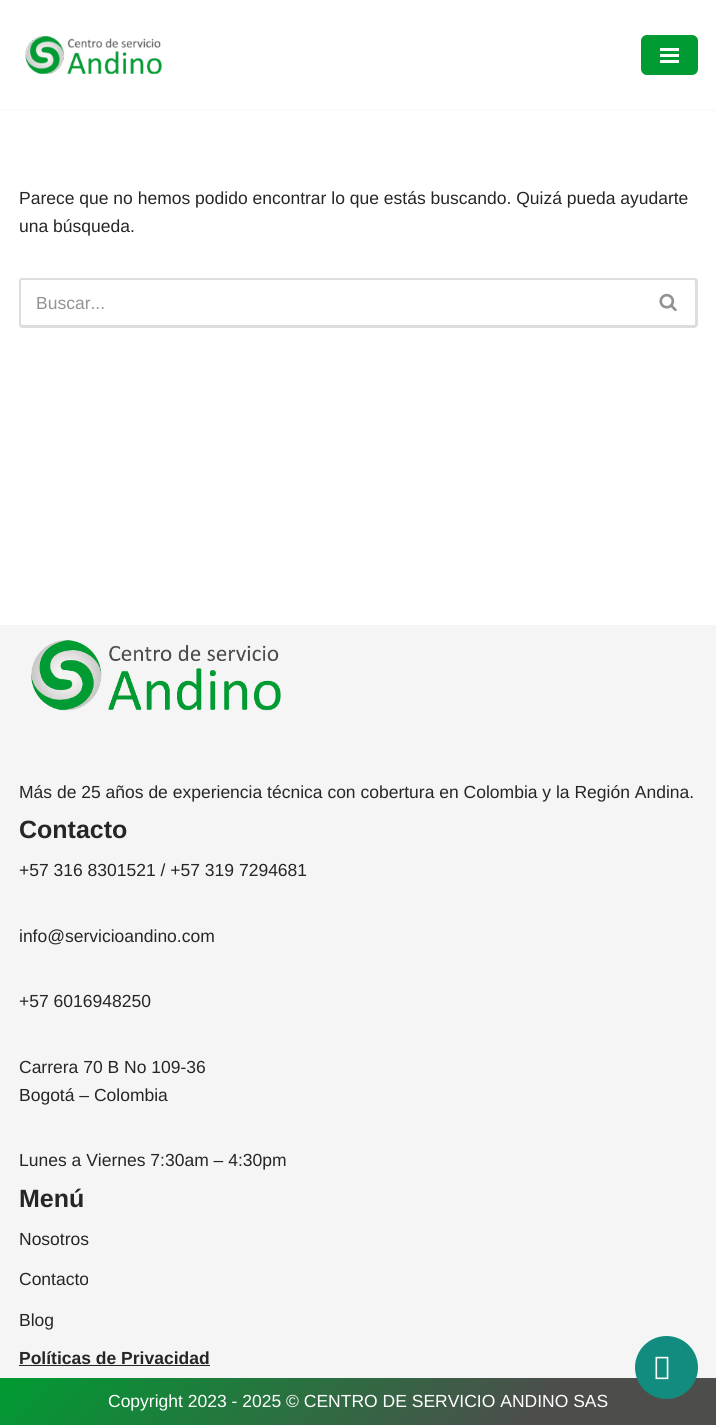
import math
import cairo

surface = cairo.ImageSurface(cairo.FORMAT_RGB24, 716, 1425)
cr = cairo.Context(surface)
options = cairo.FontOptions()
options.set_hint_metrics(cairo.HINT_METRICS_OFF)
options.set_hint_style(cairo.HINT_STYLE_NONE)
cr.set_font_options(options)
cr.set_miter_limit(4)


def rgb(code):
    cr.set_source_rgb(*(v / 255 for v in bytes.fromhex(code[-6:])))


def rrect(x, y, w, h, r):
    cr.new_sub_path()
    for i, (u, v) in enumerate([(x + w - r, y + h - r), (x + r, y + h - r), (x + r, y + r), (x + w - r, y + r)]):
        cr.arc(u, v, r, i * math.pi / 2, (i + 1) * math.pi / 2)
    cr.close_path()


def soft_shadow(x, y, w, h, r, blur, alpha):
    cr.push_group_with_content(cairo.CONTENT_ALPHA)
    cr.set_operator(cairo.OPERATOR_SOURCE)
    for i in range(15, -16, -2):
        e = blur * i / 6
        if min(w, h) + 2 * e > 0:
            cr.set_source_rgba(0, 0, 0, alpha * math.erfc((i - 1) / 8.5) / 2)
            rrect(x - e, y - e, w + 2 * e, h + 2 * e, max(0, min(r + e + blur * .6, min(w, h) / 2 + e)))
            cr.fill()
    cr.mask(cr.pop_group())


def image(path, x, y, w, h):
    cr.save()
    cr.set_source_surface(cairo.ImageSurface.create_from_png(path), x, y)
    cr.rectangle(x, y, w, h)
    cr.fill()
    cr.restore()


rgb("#ffffff")
cr.paint()
rgb("#000000")
soft_shadow(0, -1, 716, 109, 0, 2, 0.1)
rgb("#ffffff")
cr.rectangle(0, 0, 716, 109)
cr.fill()
image("img/1.png", 25, 36, 137, 38)
rgb("#009b32")
rrect(641, 35, 57, 40, 6)
cr.fill()
for x, y, w, h, color in [
    (660, 48, 19, 3, "#fefefe"),
    (660, 54, 19, 3, "#fefefe"),
    (660, 60, 19, 3, "#fefefe"),
]:
    rgb(color)
    cr.rectangle(x, y, w, h)
    cr.fill()
rgb("#dddddd")
cr.set_fill_rule(cairo.FILL_RULE_EVEN_ODD)
cr.new_path()
cr.move_to(22, 278)
cr.line_to(641, 278)
cr.line_to(641, 328)
cr.line_to(22, 328)
cr.curve_to(20, 328, 19, 326, 19, 324)
cr.line_to(19, 281)
cr.curve_to(19, 279, 20, 278, 22, 278)
cr.close_path()
cr.move_to(22, 280)
cr.line_to(641, 280)
cr.line_to(641, 325)
cr.line_to(22, 325)
cr.curve_to(22, 325, 21, 324, 21, 324)
cr.line_to(21, 281)
cr.curve_to(21, 281, 22, 280, 22, 280)
cr.close_path()
cr.fill()
cr.new_path()
cr.move_to(641, 278)
cr.line_to(694, 278)
cr.curve_to(696, 278, 698, 279, 698, 281)
cr.line_to(698, 324)
cr.curve_to(698, 326, 696, 328, 694, 328)
cr.line_to(641, 328)
cr.close_path()
cr.move_to(641, 280)
cr.line_to(694, 280)
cr.curve_to(694, 280, 695, 281, 695, 281)
cr.line_to(695, 324)
cr.curve_to(695, 324, 694, 325, 694, 325)
cr.line_to(641, 325)
cr.close_path()
cr.fill()
image("img/2.png", 659, 293, 18, 18)
rgb("#f5f5f5")
cr.rectangle(0, 625, 716, 753)
cr.fill()
image("img/3.png", 31, 640, 250, 71)
rgb("#272626")
cr.rectangle(19, 1365, 191, 1)
cr.fill()
gradient = cairo.LinearGradient(167, 1210, 549, 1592)
gradient.add_color_stop_rgba(0, 0, 0.608, 0.196, 1)
gradient.add_color_stop_rgba(0.75, 0.302, 0.302, 0.298, 1)
cr.set_source(gradient)
cr.rectangle(0, 1378, 716, 47)
cr.fill()
rgb("#118c7e")
cr.arc(666.5, 1367.5, 31.5, 0, 2 * math.pi)
cr.fill()
image("img/4.png", 655, 1356, 14, 24)
cr.select_font_face("Liberation Sans")
cr.set_font_size(17.5)
rgb("#272626")
cr.move_to(19, 204)
cr.show_text("Parece que no hemos podido encontrar lo que estás buscando. Quizá pueda ayudarte")
cr.move_to(19, 232)
cr.show_text("una búsqueda.")
rgb("#939393")
cr.move_to(36, 309)
cr.show_text("Buscar...")
rgb("#272626")
cr.move_to(19, 798)
cr.show_text("Más de 25 años de experiencia técnica con cobertura en Colombia y la Región Andina.")
cr.select_font_face("Liberation Sans", cairo.FONT_SLANT_NORMAL, cairo.FONT_WEIGHT_BOLD)
cr.set_font_size(25)
cr.move_to(19, 838)
cr.show_text("Contacto")
cr.select_font_face("Liberation Sans")
cr.set_font_size(17.5)
for x, y, s in [
    (19, 876, "+57 316 8301521 / +57 319 7294681"),
    (19, 942, "info@servicioandino.com"),
    (19, 1007, "+57 6016948250"),
    (19, 1073, "Carrera 70 B No 109-36"),
    (19, 1101, "Bogotá – Colombia"),
    (19, 1166, "Lunes a Viernes 7:30am – 4:30pm"),
]:
    cr.move_to(x, y)
    cr.show_text(s)
cr.select_font_face("Liberation Sans", cairo.FONT_SLANT_NORMAL, cairo.FONT_WEIGHT_BOLD)
cr.set_font_size(25)
cr.move_to(19, 1207)
cr.show_text("Menú")
cr.select_font_face("Liberation Sans")
cr.set_font_size(17.5)
for x, y, s in [
    (19, 1245, "Nosotros"),
    (19, 1285, "Contacto"),
    (19, 1326, "Blog"),
]:
    cr.move_to(x, y)
    cr.show_text(s)
cr.select_font_face("Liberation Sans", cairo.FONT_SLANT_NORMAL, cairo.FONT_WEIGHT_BOLD)
cr.move_to(19, 1364)
cr.show_text("Políticas de Privacidad")
cr.select_font_face("Liberation Sans")
rgb("#ffffff")
cr.move_to(108, 1407)
cr.show_text("Copyright 2023 - 2025 © CENTRO DE SERVICIO ANDINO SAS")
surface.write_to_png("page.png")
